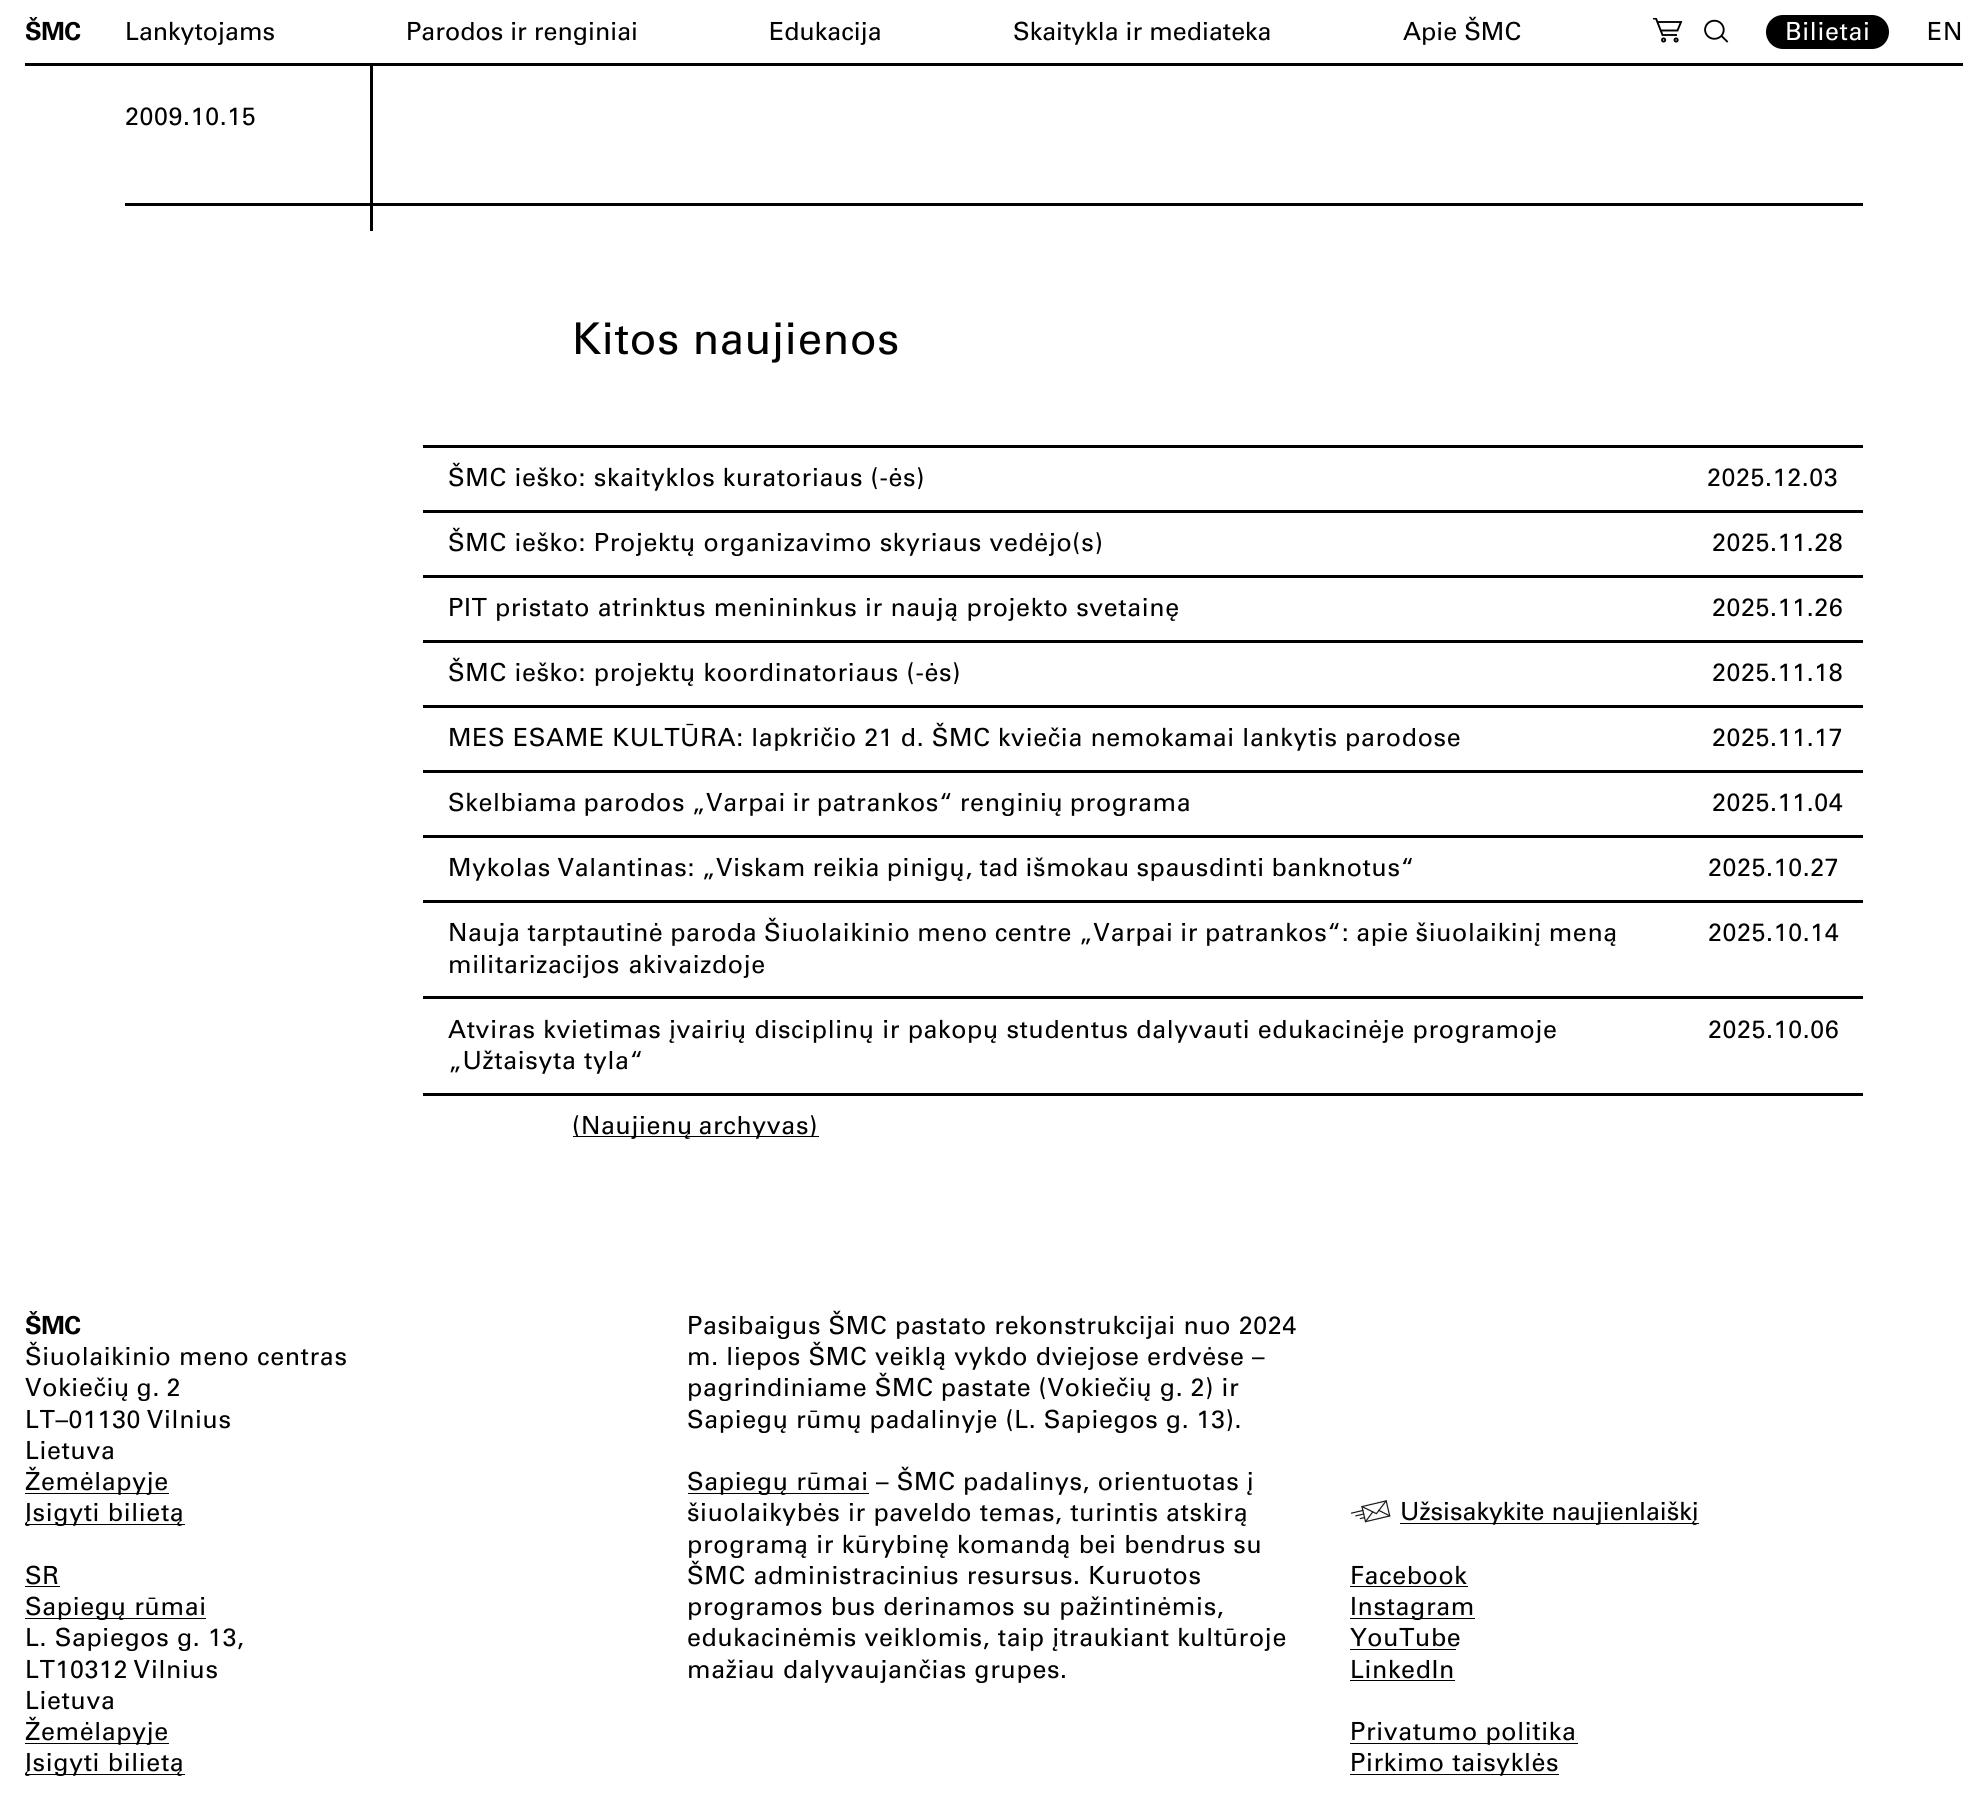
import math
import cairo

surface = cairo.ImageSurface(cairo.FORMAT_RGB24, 1987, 1794)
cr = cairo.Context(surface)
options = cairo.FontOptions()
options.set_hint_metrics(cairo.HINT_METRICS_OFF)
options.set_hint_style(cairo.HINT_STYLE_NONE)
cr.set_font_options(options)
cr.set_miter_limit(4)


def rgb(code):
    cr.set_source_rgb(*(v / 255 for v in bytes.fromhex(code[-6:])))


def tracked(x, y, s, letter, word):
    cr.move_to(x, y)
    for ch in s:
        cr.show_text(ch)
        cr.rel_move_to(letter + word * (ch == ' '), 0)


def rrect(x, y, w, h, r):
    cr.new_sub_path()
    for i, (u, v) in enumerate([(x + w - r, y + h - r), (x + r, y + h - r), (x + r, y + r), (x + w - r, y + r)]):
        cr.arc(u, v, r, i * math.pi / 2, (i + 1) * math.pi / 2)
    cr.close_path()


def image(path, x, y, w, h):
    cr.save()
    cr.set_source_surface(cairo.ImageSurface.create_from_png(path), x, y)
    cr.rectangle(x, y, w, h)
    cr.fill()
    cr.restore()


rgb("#ffffff")
cr.paint()
rgb("#000000")
cr.rectangle(25, 63, 1938, 3)
cr.fill()
cr.save()
cr.rectangle(1653, 18, 30, 25)
cr.clip()
cr.new_path()
cr.move_to(1677, 35)
cr.line_to(1662.5, 35)
cr.line_to(1656, 18.5)
cr.line_to(1652.5, 18.5)
cr.set_line_width(1.9)
cr.stroke()
cr.restore()
cr.new_path()
cr.move_to(1657.5, 22)
cr.line_to(1681, 22)
cr.line_to(1677.5, 30.5)
cr.line_to(1660.5, 30.5)
cr.set_line_width(1.9)
cr.stroke()
cr.arc(1663.6, 40, 1.6, 0, 2 * math.pi)
cr.stroke()
cr.arc(1676.1, 40, 1.6, 0, 2 * math.pi)
cr.stroke()
image("img/1.png", 1704, 19, 25, 24)
rrect(1766, 15, 123, 34, 17)
cr.fill()
for x, y, w, h, color in [
    (370, 66, 3, 165, "#000000"),
    (125, 203, 1738, 3, "#000000"),
    (423, 445, 1440, 3, "#000000"),
    (423, 510, 1440, 3, "#000000"),
    (423, 575, 1440, 3, "#000000"),
    (423, 640, 1440, 3, "#000000"),
    (423, 705, 1440, 3, "#000000"),
    (423, 770, 1440, 3, "#000000"),
    (423, 835, 1440, 3, "#000000"),
    (423, 900, 1440, 3, "#000000"),
    (423, 996, 1440, 3, "#000000"),
    (423, 1093, 1440, 3, "#000000"),
    (573, 1136, 246, 1, "#000000"),
    (25, 1493, 144, 1, "#000000"),
    (25, 1524, 160, 1, "#000000"),
    (25, 1586, 35, 1, "#000000"),
    (25, 1618, 181, 1, "#000000"),
    (25, 1743, 144, 1, "#000000"),
    (25, 1774, 160, 1, "#000000"),
    (688, 1493, 181, 1, "#000000"),
]:
    rgb(color)
    cr.rectangle(x, y, w, h)
    cr.fill()
image("img/2.png", 1350, 1500, 41, 23)
for x, y, w, h, color in [
    (1400, 1523, 299, 1, "#000000"),
    (1350, 1586, 118, 1, "#000000"),
    (1350, 1618, 125, 1, "#000000"),
    (1350, 1649, 106, 1, "#000000"),
    (1350, 1680, 105, 1, "#000000"),
    (1350, 1743, 228, 1, "#000000"),
    (1350, 1774, 209, 1, "#000000"),
]:
    rgb(color)
    cr.rectangle(x, y, w, h)
    cr.fill()
cr.select_font_face("Univers", cairo.FONT_SLANT_NORMAL, cairo.FONT_WEIGHT_BOLD)
cr.set_font_size(25)
tracked(25, 40, "ŠMC", -0.5, 0)
cr.select_font_face("Univers")
for x, y, s in [
    (125, 40, "Lankytojams"),
    (406, 40, "Parodos ir renginiai"),
    (769, 40, "Edukacija"),
    (1013, 40, "Skaitykla ir mediateka"),
    (1403, 40, "Apie ŠMC"),
]:
    cr.move_to(x, y)
    cr.show_text(s)
rgb("#ffffff")
tracked(1785, 40, "Bilietai", 0.62, 0)
rgb("#000000")
tracked(1927, 40, "EN", 0.62, 0)
tracked(125, 125, "2009.10.15", 0.62, 0)
cr.set_font_size(43.75)
tracked(572, 354, "Kitos naujienos", 0.62, 0)
cr.set_font_size(25)
for x, y, s in [
    (448, 486, "ŠMC ieško: skaityklos kuratoriaus (-ės)"),
    (1707, 486, "2025.12.03"),
    (448, 551, "ŠMC ieško: Projektų organizavimo skyriaus vedėjo(s)"),
    (1712, 551, "2025.11.28"),
    (448, 616, "PIT pristato atrinktus menininkus ir naują projekto svetainę"),
    (1712, 616, "2025.11.26"),
    (448, 681, "ŠMC ieško: projektų koordinatoriaus (-ės)"),
    (1712, 681, "2025.11.18"),
]:
    tracked(x, y, s, 0.62, 0)
tracked(448, 746, "MES ESAME KULTŪRA: lapkričio 21 d. ŠMC kviečia nemokamai lankytis parodose", 0.62, -0.1)
tracked(1712, 746, "2025.11.17", 0.62, 0)
tracked(448, 811, "Skelbiama parodos „Varpai ir patrankos“ renginių programa", 0.62, -1.25)
tracked(1712, 811, "2025.11.04", 0.62, 0)
tracked(448, 876, "Mykolas Valantinas: „Viskam reikia pinigų, tad išmokau spausdinti banknotus“", 0.62, -1)
tracked(1708, 876, "2025.10.27", 0.62, 0)
tracked(448, 941, "Nauja tarptautinė paroda Šiuolaikinio meno centre „Varpai ir patrankos“: apie šiuolaikinį meną", 0.62, -0.75)
tracked(448, 973, "militarizacijos akivaizdoje", 0.62, 1)
for x, y, s in [
    (1708, 941, "2025.10.14"),
    (448, 1038, "Atviras kvietimas įvairių disciplinų ir pakopų studentus dalyvauti edukacinėje programoje"),
    (448, 1069, "„Užtaisyta tyla“"),
    (1708, 1038, "2025.10.06"),
]:
    tracked(x, y, s, 0.62, 0)
tracked(572, 1134, "(Naujienų archyvas)", 0.62, -2)
cr.select_font_face("Univers", cairo.FONT_SLANT_NORMAL, cairo.FONT_WEIGHT_BOLD)
tracked(25, 1334, "ŠMC", -0.5, 0)
cr.select_font_face("Univers")
tracked(25, 1365, "Šiuolaikinio meno centras", 0.62, 0)
tracked(25, 1396, "Vokiečių g. 2", 0.62, -1)
tracked(25, 1428, "LT–01130 Vilnius", 0.62, -2)
for x, y, s in [
    (25, 1459, "Lietuva"),
    (25, 1490, "Žemėlapyje"),
    (25, 1521, "Įsigyti bilietą"),
    (25, 1584, "SR"),
    (25, 1615, "Sapiegų rūmai"),
    (25, 1646, "L. Sapiegos g. 13,"),
]:
    tracked(x, y, s, 0.62, 0)
tracked(25, 1678, "LT10312 Vilnius", 0.62, -2)
for x, y, s in [
    (25, 1709, "Lietuva"),
    (25, 1740, "Žemėlapyje"),
    (25, 1771, "Įsigyti bilietą"),
    (687, 1334, "Pasibaigus ŠMC pastato rekonstrukcijai nuo 2024"),
    (687, 1365, "m. liepos ŠMC veiklą vykdo dviejose erdvėse –"),
]:
    tracked(x, y, s, 0.62, 0)
tracked(687, 1396, "pagrindiniame ŠMC pastate (Vokiečių g. 2) ir", 0.62, -0.25)
tracked(687, 1428, "Sapiegų rūmų padalinyje (L. Sapiegos g. 13).", 0.62, -0.25)
for x, y, s in [
    (687, 1490, "Sapiegų rūmai"),
    (876, 1490, "– ŠMC padalinys, orientuotas į"),
    (687, 1521, "šiuolaikybės ir paveldo temas, turintis atskirą"),
    (687, 1553, "programą ir kūrybinę komandą bei bendrus su"),
    (687, 1584, "ŠMC administracinius resursus. Kuruotos"),
    (687, 1615, "programos bus derinamos su pažintinėmis,"),
    (687, 1646, "edukacinėmis veiklomis, taip įtraukiant kultūroje"),
    (687, 1678, "mažiau dalyvaujančias grupes."),
]:
    tracked(x, y, s, 0.62, 0)
cr.move_to(1400, 1520)
cr.show_text("Užsisakykite naujienlaiškį")
for x, y, s in [
    (1350, 1584, "Facebook"),
    (1350, 1615, "Instagram"),
    (1350, 1646, "YouTube"),
    (1350, 1678, "LinkedIn"),
    (1350, 1740, "Privatumo politika"),
    (1350, 1771, "Pirkimo taisyklės"),
]:
    tracked(x, y, s, 0.62, 0)
surface.write_to_png("page.png")
